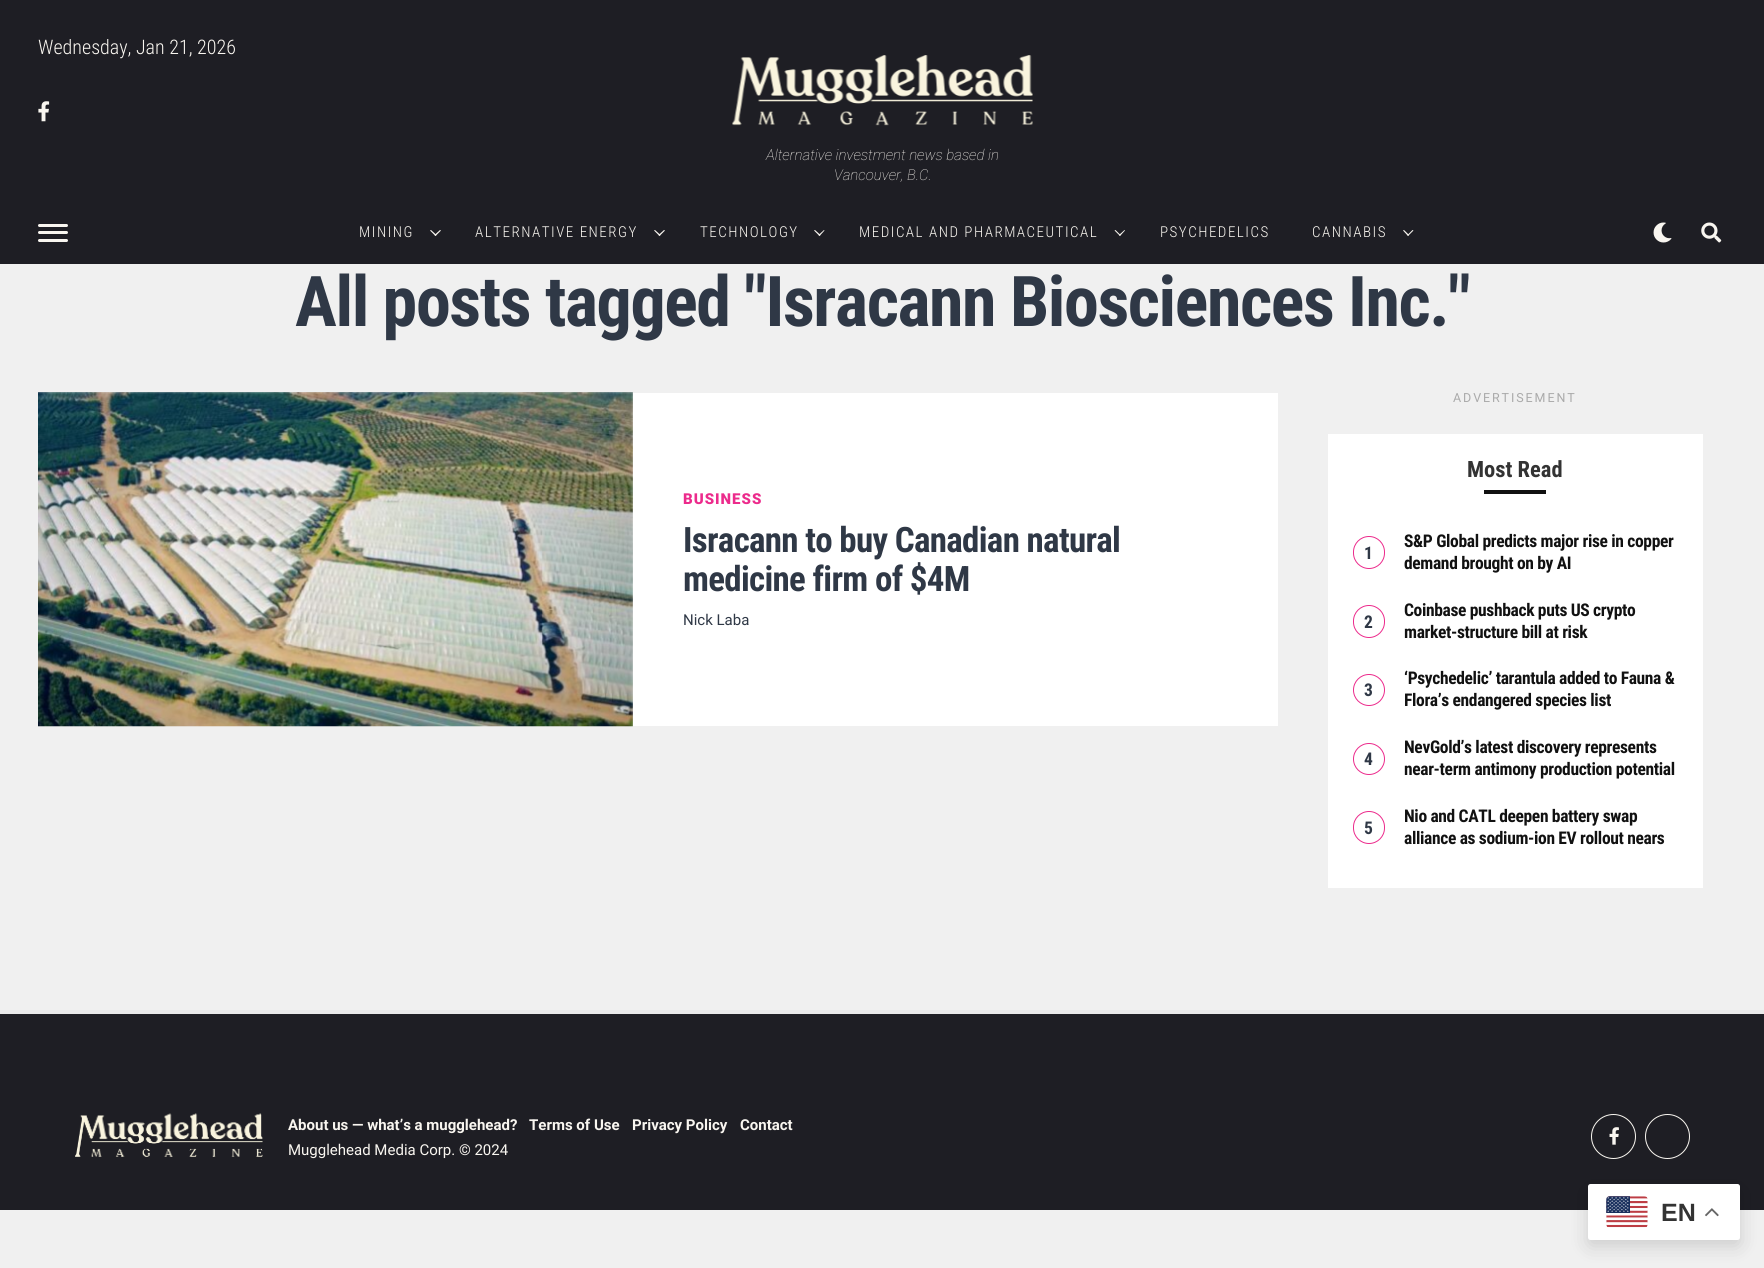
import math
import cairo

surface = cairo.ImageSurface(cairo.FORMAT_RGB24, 1764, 1268)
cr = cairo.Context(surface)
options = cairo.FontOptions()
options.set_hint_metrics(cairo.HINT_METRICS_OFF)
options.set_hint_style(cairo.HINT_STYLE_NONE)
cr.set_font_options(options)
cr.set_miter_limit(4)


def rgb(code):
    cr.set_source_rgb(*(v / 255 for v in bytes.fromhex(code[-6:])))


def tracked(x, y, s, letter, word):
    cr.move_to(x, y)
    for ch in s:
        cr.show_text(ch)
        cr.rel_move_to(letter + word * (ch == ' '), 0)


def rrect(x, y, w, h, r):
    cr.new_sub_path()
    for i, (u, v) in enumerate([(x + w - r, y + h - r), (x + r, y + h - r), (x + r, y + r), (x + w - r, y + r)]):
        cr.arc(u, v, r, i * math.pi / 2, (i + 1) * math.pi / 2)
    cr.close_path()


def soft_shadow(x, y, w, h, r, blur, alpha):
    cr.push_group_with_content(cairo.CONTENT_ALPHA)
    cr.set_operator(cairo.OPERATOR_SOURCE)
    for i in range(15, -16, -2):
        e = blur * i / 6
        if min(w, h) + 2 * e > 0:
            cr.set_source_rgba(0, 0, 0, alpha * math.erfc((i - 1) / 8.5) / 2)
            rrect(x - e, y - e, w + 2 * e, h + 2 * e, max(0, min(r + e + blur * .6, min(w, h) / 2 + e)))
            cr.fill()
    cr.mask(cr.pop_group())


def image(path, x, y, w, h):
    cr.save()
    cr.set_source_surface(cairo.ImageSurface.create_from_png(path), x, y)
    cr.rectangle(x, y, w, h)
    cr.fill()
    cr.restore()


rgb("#f0f0f0")
cr.paint()
rgb("#1e1e24")
cr.rectangle(0, 0, 1764, 264)
cr.fill()
image("img/1.png", 38, 101, 12, 21)
image("img/2.png", 732, 55, 301, 71)
rgb("#f9f6f0")
rrect(38, 224, 30, 3, 1.5)
cr.fill()
rrect(38, 231, 30, 3, 1.5)
cr.fill()
rrect(38, 239, 30, 3, 1.5)
cr.fill()
cr.new_path()
cr.move_to(440, 230)
cr.line_to(441, 230.5)
cr.line_to(435.5, 236)
cr.line_to(434.5, 235)
cr.close_path()
cr.fill()
cr.new_path()
cr.move_to(431, 230)
cr.line_to(436.5, 235)
cr.line_to(435.5, 236)
cr.line_to(430, 230.5)
cr.close_path()
cr.fill()
cr.new_path()
cr.move_to(664, 230)
cr.line_to(665, 230.5)
cr.line_to(659.5, 236)
cr.line_to(658.5, 235)
cr.close_path()
cr.fill()
cr.new_path()
cr.move_to(655, 230)
cr.line_to(660.5, 235)
cr.line_to(659.5, 236)
cr.line_to(654, 230.5)
cr.close_path()
cr.fill()
cr.new_path()
cr.move_to(824, 230)
cr.line_to(824.5, 230.5)
cr.line_to(819.5, 236)
cr.line_to(818.5, 235)
cr.close_path()
cr.fill()
cr.new_path()
cr.move_to(815, 230)
cr.line_to(820.5, 235)
cr.line_to(819.5, 236)
cr.line_to(814, 230.5)
cr.close_path()
cr.fill()
cr.new_path()
cr.move_to(1124.5, 230)
cr.line_to(1125, 230.5)
cr.line_to(1120, 236)
cr.line_to(1119, 235)
cr.close_path()
cr.fill()
cr.new_path()
cr.move_to(1115.5, 230)
cr.line_to(1120.5, 235)
cr.line_to(1120, 236)
cr.line_to(1114.5, 230.5)
cr.close_path()
cr.fill()
cr.new_path()
cr.move_to(1412.5, 230)
cr.line_to(1413.5, 230.5)
cr.line_to(1408, 236)
cr.line_to(1407.5, 235)
cr.close_path()
cr.fill()
cr.new_path()
cr.move_to(1404, 230)
cr.line_to(1409, 235)
cr.line_to(1408, 236)
cr.line_to(1403, 230.5)
cr.close_path()
cr.fill()
image("img/3.png", 1653, 222, 19, 21)
image("img/4.png", 1701, 222, 21, 21)
rgb("#ffffff")
cr.rectangle(38, 393, 1240, 333)
cr.fill()
image("img/5.png", 38, 392, 595, 335)
cr.rectangle(1328, 434, 375, 454)
cr.fill()
rgb("#111111")
cr.rectangle(1484, 490, 62, 4)
cr.fill()
rrect(1353.5, 536.5, 31, 32, 15.5)
rgb("#ec2b8c")
cr.set_line_width(1)
cr.stroke()
rrect(1353.5, 605.5, 31, 32, 15.5)
cr.stroke()
cr.arc(1369, 690, 15.5, 0, 2 * math.pi)
cr.stroke()
cr.arc(1369, 759, 15.5, 0, 2 * math.pi)
cr.stroke()
rrect(1353.5, 811.5, 31, 32, 15.5)
cr.stroke()
rgb("#1e1e24")
cr.rectangle(0, 1014, 1764, 196)
cr.fill()
rgb("#e9e9e9")
cr.rectangle(0, 1010, 1764, 4)
cr.fill()
image("img/6.png", 75, 1113, 188, 44)
cr.arc(1613.5, 1136.5, 22, 0, 2 * math.pi)
rgb("#f9f6f0")
cr.stroke()
image("img/7.png", 1609, 1127, 10, 18)
cr.arc(1667.5, 1136.5, 22, 0, 2 * math.pi)
cr.stroke()
rgb("#000000")
soft_shadow(1588, 1190, 152, 56, 2.5, 9.5, 0.15)
rgb("#ffffff")
rrect(1588, 1184, 152, 56, 2.5)
cr.fill()
image("img/8.png", 1606, 1196, 42, 32)
image("img/9.png", 1705, 1208, 14, 9)
cr.select_font_face("Roboto Condensed Light")
cr.set_font_size(20)
rgb("#f9f6f0")
cr.move_to(38, 54)
cr.show_text("Wednesday, Jan 21, 2026")
cr.select_font_face("Roboto Thin", cairo.FONT_SLANT_ITALIC)
cr.set_font_size(15)
cr.move_to(766, 160)
cr.show_text("Alternative investment news based in")
cr.move_to(834, 180)
cr.show_text("Vancouver, B.C.")
cr.select_font_face("Roboto Condensed Light")
for x, y, s in [
    (359, 237, "MINING"),
    (475, 237, "ALTERNATIVE ENERGY"),
    (700, 237, "TECHNOLOGY"),
    (859, 237, "MEDICAL AND PHARMACEUTICAL"),
    (1160, 237, "PSYCHEDELICS"),
    (1312, 237, "CANNABIS"),
]:
    tracked(x, y, s, 1.5, 0)
cr.select_font_face("Roboto Condensed", cairo.FONT_SLANT_NORMAL, cairo.FONT_WEIGHT_BOLD)
cr.set_font_size(70)
rgb("#2f3846")
tracked(295, 326, "All posts tagged \"Isracann Biosciences Inc.\"", -1.4, 0)
cr.select_font_face("Roboto Black")
cr.set_font_size(15)
rgb("#ec2b8c")
tracked(683, 504, "BUSINESS", 1, 0)
cr.select_font_face("Roboto Condensed", cairo.FONT_SLANT_NORMAL, cairo.FONT_WEIGHT_BOLD)
cr.set_font_size(35)
rgb("#2f3846")
tracked(683, 552, "Isracann to buy Canadian natural", -0.7, 0)
tracked(683, 591, "medicine firm of $4M", -0.7, 0)
cr.select_font_face("Roboto")
cr.set_font_size(15)
cr.move_to(683, 625)
cr.show_text("Nick Laba")
cr.set_font_size(12.5)
rgb("#aaaaaa")
tracked(1453, 402, "ADVERTISEMENT", 1.9, 0)
cr.select_font_face("Roboto Condensed", cairo.FONT_SLANT_NORMAL, cairo.FONT_WEIGHT_BOLD)
cr.set_font_size(22.5)
rgb("#333333")
cr.move_to(1467, 477)
cr.show_text("Most Read")
cr.set_font_size(17.5)
rgb("#2f3846")
cr.move_to(1364, 559)
cr.show_text("1")
rgb("#111111")
tracked(1404, 547, "S&P Global predicts major rise in copper", -0.35, 0)
tracked(1404, 569, "demand brought on by AI", -0.35, 0)
rgb("#2f3846")
cr.move_to(1364, 628)
cr.show_text("2")
rgb("#111111")
tracked(1404, 616, "Coinbase pushback puts US crypto", -0.35, 0)
tracked(1404, 638, "market-structure bill at risk", -0.35, 0)
rgb("#2f3846")
cr.move_to(1364, 696)
cr.show_text("3")
rgb("#111111")
tracked(1404, 684, "‘Psychedelic’ tarantula added to Fauna &", -0.35, 0)
tracked(1404, 706, "Flora’s endangered species list", -0.35, 0)
rgb("#2f3846")
cr.move_to(1364, 765)
cr.show_text("4")
rgb("#111111")
tracked(1404, 753, "NevGold’s latest discovery represents", -0.35, 0)
tracked(1404, 775, "near-term antimony production potential", -0.35, 0)
rgb("#2f3846")
cr.move_to(1364, 834)
cr.show_text("5")
rgb("#111111")
tracked(1404, 822, "Nio and CATL deepen battery swap", -0.35, 0)
tracked(1404, 844, "alliance as sodium-ion EV rollout nears", -0.35, 0)
cr.select_font_face("Roboto", cairo.FONT_SLANT_NORMAL, cairo.FONT_WEIGHT_BOLD)
cr.set_font_size(15)
rgb("#f9f6f0")
for x, y, s in [
    (288, 1130, "About us — what’s a mugglehead?"),
    (529, 1130, "Terms of Use"),
    (632, 1130, "Privacy Policy"),
    (740, 1130, "Contact"),
]:
    cr.move_to(x, y)
    cr.show_text(s)
cr.select_font_face("Roboto")
cr.move_to(288, 1155)
cr.show_text("Mugglehead Media Corp. © 2024")
cr.select_font_face("Liberation Sans", cairo.FONT_SLANT_NORMAL, cairo.FONT_WEIGHT_BOLD)
cr.set_font_size(25)
rgb("#333333")
cr.move_to(1661, 1221)
cr.show_text("EN")
surface.write_to_png("page.png")
